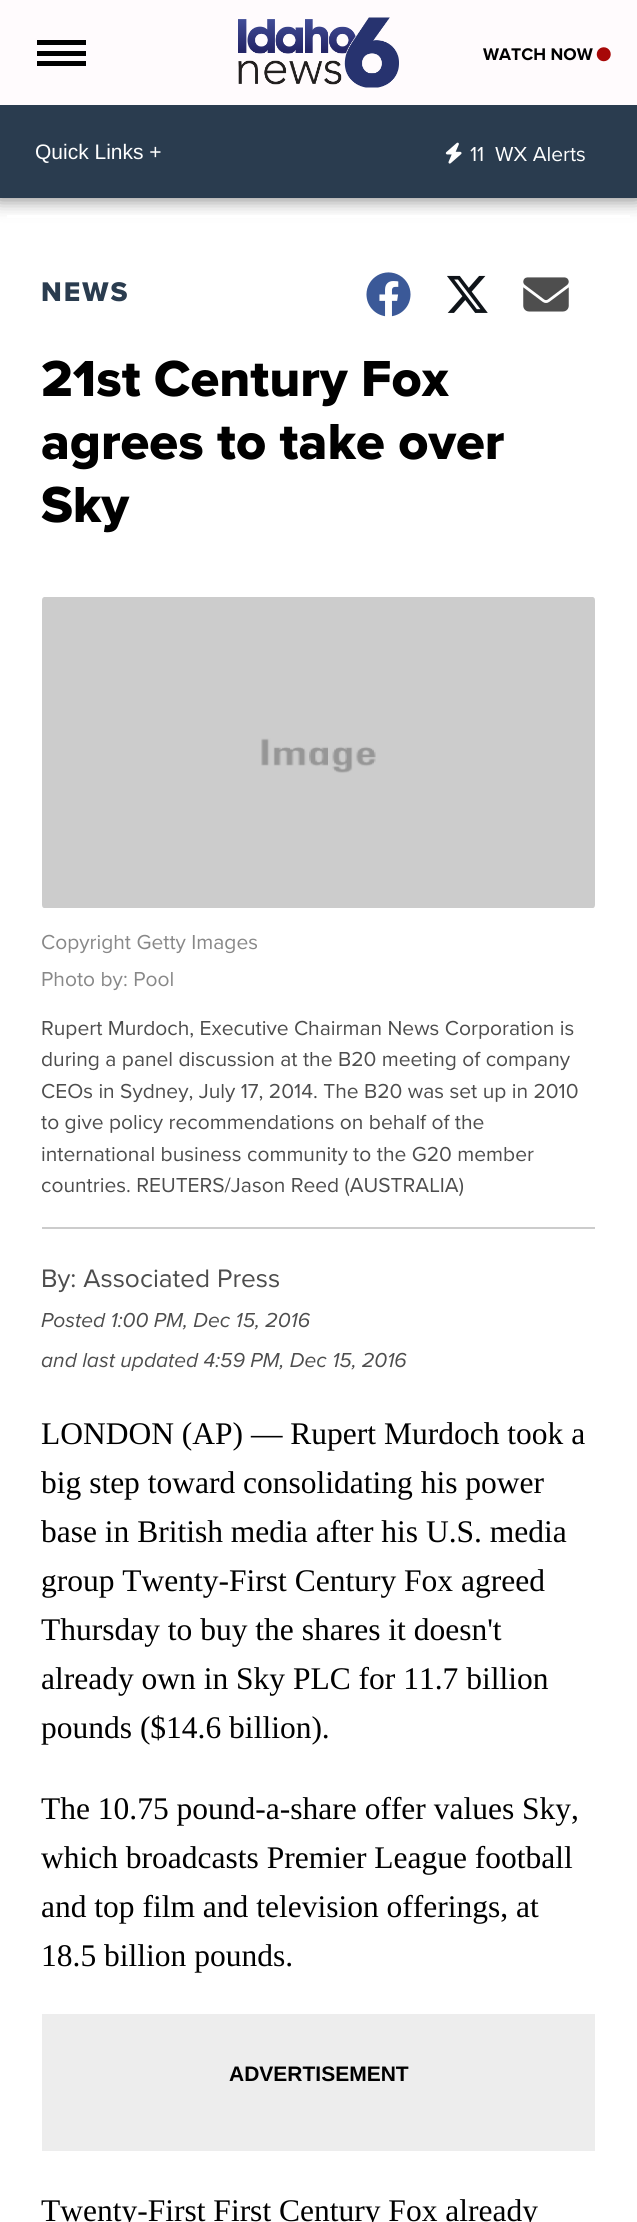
import math
import cairo

surface = cairo.ImageSurface(cairo.FORMAT_RGB24, 637, 2222)
cr = cairo.Context(surface)
options = cairo.FontOptions()
options.set_hint_metrics(cairo.HINT_METRICS_OFF)
options.set_hint_style(cairo.HINT_STYLE_NONE)
cr.set_font_options(options)
cr.set_miter_limit(4)


def rgb(code):
    cr.set_source_rgb(*(v / 255 for v in bytes.fromhex(code[-6:])))


def tracked(x, y, s, letter, word):
    cr.move_to(x, y)
    for ch in s:
        cr.show_text(ch)
        cr.rel_move_to(letter + word * (ch == ' '), 0)


def rrect(x, y, w, h, r):
    cr.new_sub_path()
    for i, (u, v) in enumerate([(x + w - r, y + h - r), (x + r, y + h - r), (x + r, y + r), (x + w - r, y + r)]):
        cr.arc(u, v, r, i * math.pi / 2, (i + 1) * math.pi / 2)
    cr.close_path()


def soft_shadow(x, y, w, h, r, blur, alpha):
    cr.push_group_with_content(cairo.CONTENT_ALPHA)
    cr.set_operator(cairo.OPERATOR_SOURCE)
    for i in range(15, -16, -2):
        e = blur * i / 6
        if min(w, h) + 2 * e > 0:
            cr.set_source_rgba(0, 0, 0, alpha * math.erfc((i - 1) / 8.5) / 2)
            rrect(x - e, y - e, w + 2 * e, h + 2 * e, max(0, min(r + e + blur * .6, min(w, h) / 2 + e)))
            cr.fill()
    cr.mask(cr.pop_group())


def image(path, x, y, w, h):
    cr.save()
    cr.set_source_surface(cairo.ImageSurface.create_from_png(path), x, y)
    cr.rectangle(x, y, w, h)
    cr.fill()
    cr.restore()


rgb("#ffffff")
cr.paint()
rgb("#616161")
soft_shadow(-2, -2, 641, 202, 0, 9, 0.76)
for x, y, w, h, color in [
    (0, 0, 637, 105, "#fffbfd"),
    (37, 40, 49, 5, "#000000"),
    (37, 51, 49, 5, "#000000"),
    (37, 61, 49, 5, "#000000"),
]:
    rgb(color)
    cr.rectangle(x, y, w, h)
    cr.fill()
image("img/1.png", 238, 17, 161, 71)
image("img/2.png", 596, 47, 15, 15)
rgb("#2a3c4f")
cr.rectangle(0, 105, 637, 93)
cr.fill()
image("img/3.png", 445, 142, 17, 22)
rgb("#ffffff")
cr.rectangle(7, 215, 623, 3)
cr.fill()
image("img/4.png", 366, 272, 45, 45)
image("img/5.png", 447, 275, 41, 38)
image("img/6.png", 523, 277, 46, 35)
rgb("#cccccc")
cr.rectangle(42, 1227, 553, 2)
cr.fill()
image("img/7.png", 42, 597, 553, 311)
rgb("#ededed")
cr.rectangle(42, 2014, 553, 137)
cr.fill()
cr.select_font_face("Proxima Nova", cairo.FONT_SLANT_NORMAL, cairo.FONT_WEIGHT_BOLD)
cr.set_font_size(17.5)
rgb("#000000")
cr.move_to(483, 60)
cr.show_text("WATCH NOW")
cr.select_font_face("Liberation Sans")
cr.set_font_size(21)
rgb("#ffffff")
cr.move_to(35, 159)
cr.show_text("Quick Links +")
cr.select_font_face("Proxima Nova")
cr.move_to(470, 161)
cr.show_text("11")
cr.move_to(495, 161)
cr.show_text("WX Alerts")
cr.select_font_face("Proxima Nova ExtraBold")
cr.set_font_size(28)
rgb("#2a3c4f")
tracked(41, 301, "NEWS", 2, 0)
cr.set_font_size(52.5)
rgb("#000000")
for x, y, s in [
    (41, 396, "21st Century Fox"),
    (41, 459, "agrees to take over"),
    (41, 522, "Sky"),
]:
    cr.move_to(x, y)
    cr.show_text(s)
cr.select_font_face("Proxima Nova")
cr.set_font_size(21)
rgb("#888888")
cr.move_to(41, 949)
cr.show_text("Copyright Getty Images")
cr.move_to(41, 986)
cr.show_text("Photo by: Pool")
rgb("#4d4d4d")
for x, y, s in [
    (41, 1035, "Rupert Murdoch, Executive Chairman News Corporation is"),
    (41, 1066, "during a panel discussion at the B20 meeting of company"),
    (41, 1098, "CEOs in Sydney, July 17, 2014. The B20 was set up in 2010"),
    (41, 1129, "to give policy recommendations on behalf of the"),
    (41, 1161, "international business community to the G20 member"),
    (41, 1192, "countries. REUTERS/Jason Reed (AUSTRALIA)"),
]:
    cr.move_to(x, y)
    cr.show_text(s)
cr.set_font_size(26.25)
cr.move_to(41, 1287)
cr.show_text("By: Associated Press")
cr.select_font_face("Proxima Nova", cairo.FONT_SLANT_ITALIC)
cr.set_font_size(21)
cr.move_to(41, 1327)
cr.show_text("Posted 1:00 PM, Dec 15, 2016")
cr.move_to(41, 1367)
cr.show_text("and last updated 4:59 PM, Dec 15, 2016")
cr.select_font_face("Liberation Serif")
cr.set_font_size(31.5)
rgb("#000000")
for x, y, s in [
    (41, 1444, "LONDON (AP) — Rupert Murdoch took a"),
    (41, 1493, "big step toward consolidating his power"),
    (41, 1542, "base in British media after his U.S. media"),
    (41, 1591, "group Twenty-First Century Fox agreed"),
    (41, 1640, "Thursday to buy the shares it doesn't"),
    (41, 1689, "already own in Sky PLC for 11.7 billion"),
    (41, 1738, "pounds ($14.6 billion)."),
    (41, 1819, "The 10.75 pound-a-share offer values Sky,"),
    (41, 1868, "which broadcasts Premier League football"),
    (41, 1917, "and top film and television offerings, at"),
    (41, 1966, "18.5 billion pounds."),
]:
    cr.move_to(x, y)
    cr.show_text(s)
cr.select_font_face("Liberation Sans", cairo.FONT_SLANT_NORMAL, cairo.FONT_WEIGHT_BOLD)
cr.set_font_size(21)
cr.move_to(229, 2081)
cr.show_text("ADVERTISEMENT")
cr.select_font_face("Liberation Serif")
cr.set_font_size(31.5)
cr.move_to(41, 2221)
cr.show_text("Twenty-First First Century Fox already")
surface.write_to_png("page.png")
